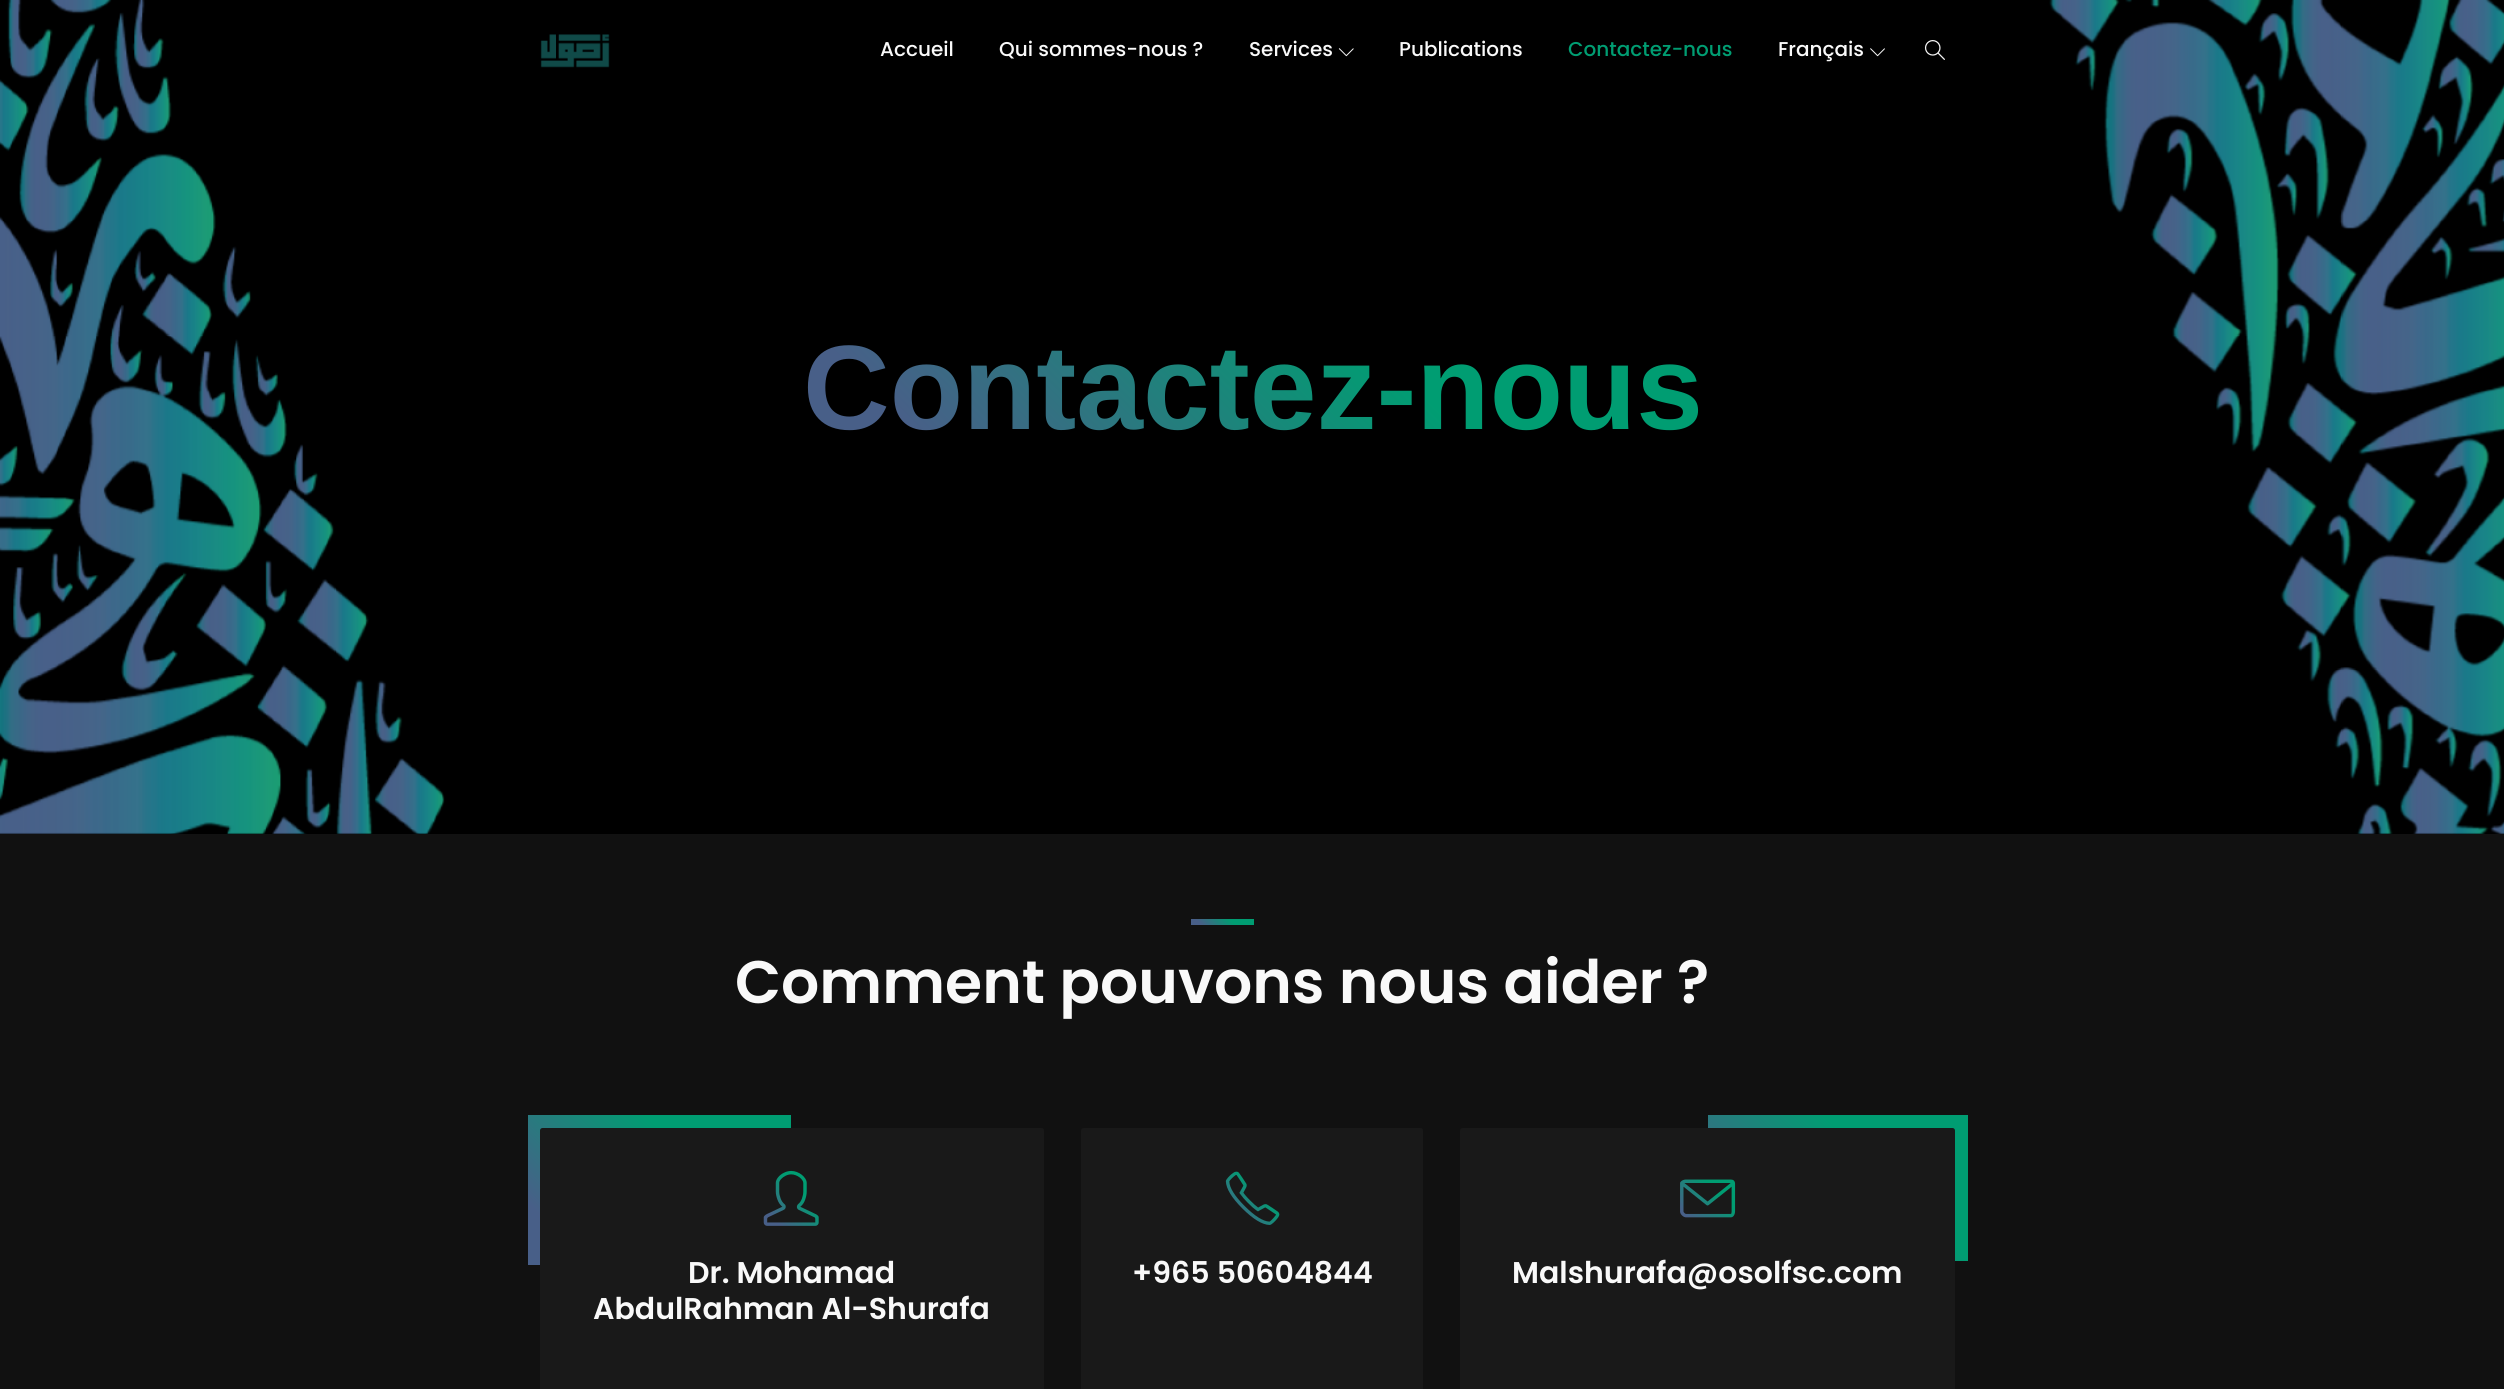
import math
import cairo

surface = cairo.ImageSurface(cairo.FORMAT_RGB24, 2504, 1389)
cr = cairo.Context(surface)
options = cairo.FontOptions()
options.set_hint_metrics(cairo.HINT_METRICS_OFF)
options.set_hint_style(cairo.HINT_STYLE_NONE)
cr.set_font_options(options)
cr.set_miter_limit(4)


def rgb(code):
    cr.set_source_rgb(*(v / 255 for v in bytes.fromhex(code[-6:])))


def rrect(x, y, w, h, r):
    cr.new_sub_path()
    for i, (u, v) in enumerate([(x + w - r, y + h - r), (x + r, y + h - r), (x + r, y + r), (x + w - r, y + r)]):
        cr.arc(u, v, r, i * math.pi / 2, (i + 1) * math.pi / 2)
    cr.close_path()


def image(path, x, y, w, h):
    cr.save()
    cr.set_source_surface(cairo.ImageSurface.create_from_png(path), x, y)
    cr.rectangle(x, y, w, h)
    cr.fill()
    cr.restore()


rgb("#000000")
cr.paint()
image("img/5.png", 0, 0, 2504, 834)
image("img/1.png", 540, 34, 70, 34)
image("img/2.png", 1338, 48, 16, 9)
image("img/3.png", 1870, 48, 15, 9)
image("img/4.png", 1924, 40, 21, 20)
rgb("#111111")
cr.rectangle(0, 834, 2504, 555)
cr.fill()
gradient = cairo.LinearGradient(1205, 939, 1240, 905)
gradient.add_color_stop_rgba(0.15, 0.282, 0.373, 0.533, 1)
gradient.add_color_stop_rgba(0.65, 0, 0.616, 0.447, 1)
cr.set_source(gradient)
cr.rectangle(1191, 919, 63, 6)
cr.fill()
gradient = cairo.LinearGradient(556, 1293, 763, 1087)
gradient.add_color_stop_rgba(0.15, 0.282, 0.373, 0.533, 1)
gradient.add_color_stop_rgba(0.65, 0, 0.616, 0.447, 1)
cr.set_source(gradient)
cr.rectangle(528, 1115, 263, 150)
cr.fill()
rgb("#191919")
rrect(540, 1128, 504, 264, 2.5)
cr.fill()
image("img/6.png", 763, 1170, 56, 56)
rrect(1081, 1128, 342, 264, 2.5)
cr.fill()
image("img/7.png", 1225, 1171, 55, 54)
gradient = cairo.LinearGradient(1736, 1290, 1939, 1087)
gradient.add_color_stop_rgba(0.15, 0.282, 0.373, 0.533, 1)
gradient.add_color_stop_rgba(0.65, 0, 0.616, 0.447, 1)
cr.set_source(gradient)
cr.rectangle(1708, 1115, 260, 146)
cr.fill()
rgb("#191919")
rrect(1460, 1128, 495, 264, 2.5)
cr.fill()
image("img/8.png", 1680, 1179, 56, 39)
cr.select_font_face("Poppins Medium")
cr.set_font_size(20)
rgb("#f9f9f9")
for x, y, s in [
    (880, 56, "Accueil"),
    (999, 56, "Qui sommes-nous ?"),
    (1249, 56, "Services"),
    (1399, 56, "Publications"),
]:
    cr.move_to(x, y)
    cr.show_text(s)
rgb("#009d72")
cr.move_to(1568, 56)
cr.show_text("Contactez-nous")
rgb("#f9f9f9")
cr.move_to(1778, 56)
cr.show_text("Français")
cr.select_font_face("Liberation Sans", cairo.FONT_SLANT_NORMAL, cairo.FONT_WEIGHT_BOLD)
cr.set_font_size(120)
gradient = cairo.LinearGradient(979, 661, 1526, 113)
gradient.add_color_stop_rgba(0.15, 0.282, 0.373, 0.533, 1)
gradient.add_color_stop_rgba(0.65, 0, 0.616, 0.447, 1)
cr.set_source(gradient)
cr.move_to(803, 429)
cr.show_text("Contactez-nous")
cr.select_font_face("Poppins SemiBold")
cr.set_font_size(60)
rgb("#f9f9f9")
cr.move_to(735, 1003)
cr.show_text("Comment pouvons nous aider ?")
cr.set_font_size(30)
for x, y, s in [
    (688, 1283, "Dr. Mohamad"),
    (593, 1319, "AbdulRahman Al-Shurafa"),
    (1132, 1283, "+965 50604844"),
    (1512, 1283, "Malshurafa@osolfsc.com"),
]:
    cr.move_to(x, y)
    cr.show_text(s)
surface.write_to_png("page.png")
